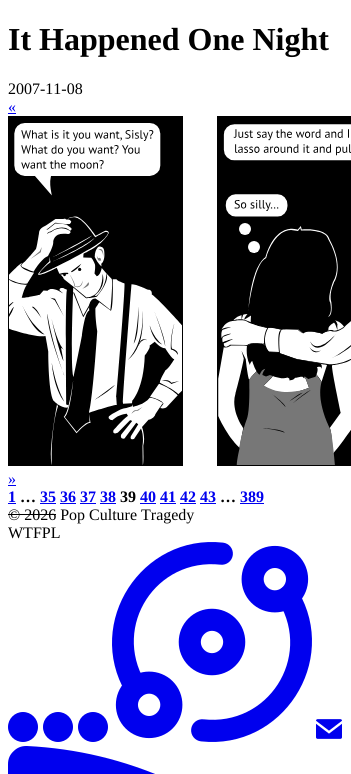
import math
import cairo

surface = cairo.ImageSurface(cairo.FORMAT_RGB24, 351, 774)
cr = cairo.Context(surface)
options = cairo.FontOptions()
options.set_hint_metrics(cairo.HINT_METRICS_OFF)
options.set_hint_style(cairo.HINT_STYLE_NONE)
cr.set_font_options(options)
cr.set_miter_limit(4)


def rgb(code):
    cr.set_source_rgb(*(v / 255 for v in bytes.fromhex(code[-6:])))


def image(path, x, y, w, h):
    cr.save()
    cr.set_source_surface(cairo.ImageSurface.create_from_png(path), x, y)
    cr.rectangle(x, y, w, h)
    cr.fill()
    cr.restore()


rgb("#ffffff")
cr.paint()
rgb("#0000ee")
cr.rectangle(8, 113, 8, 1)
cr.fill()
image("img/1.png", 8, 116, 343, 350)
for x, y, w, h, color in [
    (8, 485, 8, 1, "#0000ee"),
    (8, 503, 8, 1, "#0000ee"),
    (40, 503, 16, 1, "#0000ee"),
    (140, 503, 16, 1, "#0000ee"),
    (240, 503, 24, 1, "#0000ee"),
    (60, 503, 16, 1, "#0000ee"),
    (80, 503, 16, 1, "#0000ee"),
    (100, 503, 16, 1, "#0000ee"),
    (160, 503, 16, 1, "#0000ee"),
    (180, 503, 16, 1, "#0000ee"),
    (200, 503, 16, 1, "#0000ee"),
    (8, 514, 48, 1, "#000000"),
]:
    rgb(color)
    cr.rectangle(x, y, w, h)
    cr.fill()
rgb("#0000ee")
cr.arc(23, 727, 15, 0, 2 * math.pi)
cr.fill()
cr.arc(58, 727, 15, 0, 2 * math.pi)
cr.fill()
cr.arc(93, 727, 15, 0, 2 * math.pi)
cr.fill()
image("img/2.png", 112, 542, 200, 200)
image("img/3.png", 316, 719, 26, 20)
image("img/4.png", 8, 746, 147, 28)
cr.select_font_face("Liberation Serif", cairo.FONT_SLANT_NORMAL, cairo.FONT_WEIGHT_BOLD)
cr.set_font_size(32)
rgb("#000000")
cr.move_to(8, 50)
cr.show_text("It Happened One Night")
cr.select_font_face("Liberation Serif")
cr.set_font_size(16)
cr.move_to(8, 94)
cr.show_text("2007-11-08")
rgb("#0000ee")
cr.move_to(8, 112)
cr.show_text("«")
cr.move_to(8, 484)
cr.show_text("»")
cr.select_font_face("Liberation Serif", cairo.FONT_SLANT_NORMAL, cairo.FONT_WEIGHT_BOLD)
cr.move_to(8, 502)
cr.show_text("1")
rgb("#000000")
cr.move_to(20, 502)
cr.show_text("…")
rgb("#0000ee")
cr.move_to(40, 502)
cr.show_text("35 36 37 38")
rgb("#000000")
cr.move_to(120, 502)
cr.show_text("39")
rgb("#0000ee")
cr.move_to(140, 502)
cr.show_text("40 41 42 43")
rgb("#000000")
cr.move_to(220, 502)
cr.show_text("…")
rgb("#0000ee")
cr.move_to(240, 502)
cr.show_text("389")
cr.select_font_face("Liberation Serif")
rgb("#000000")
cr.move_to(8, 520)
cr.show_text("© 2026 Pop Culture Tragedy")
cr.move_to(8, 538)
cr.show_text("WTFPL")
surface.write_to_png("page.png")
